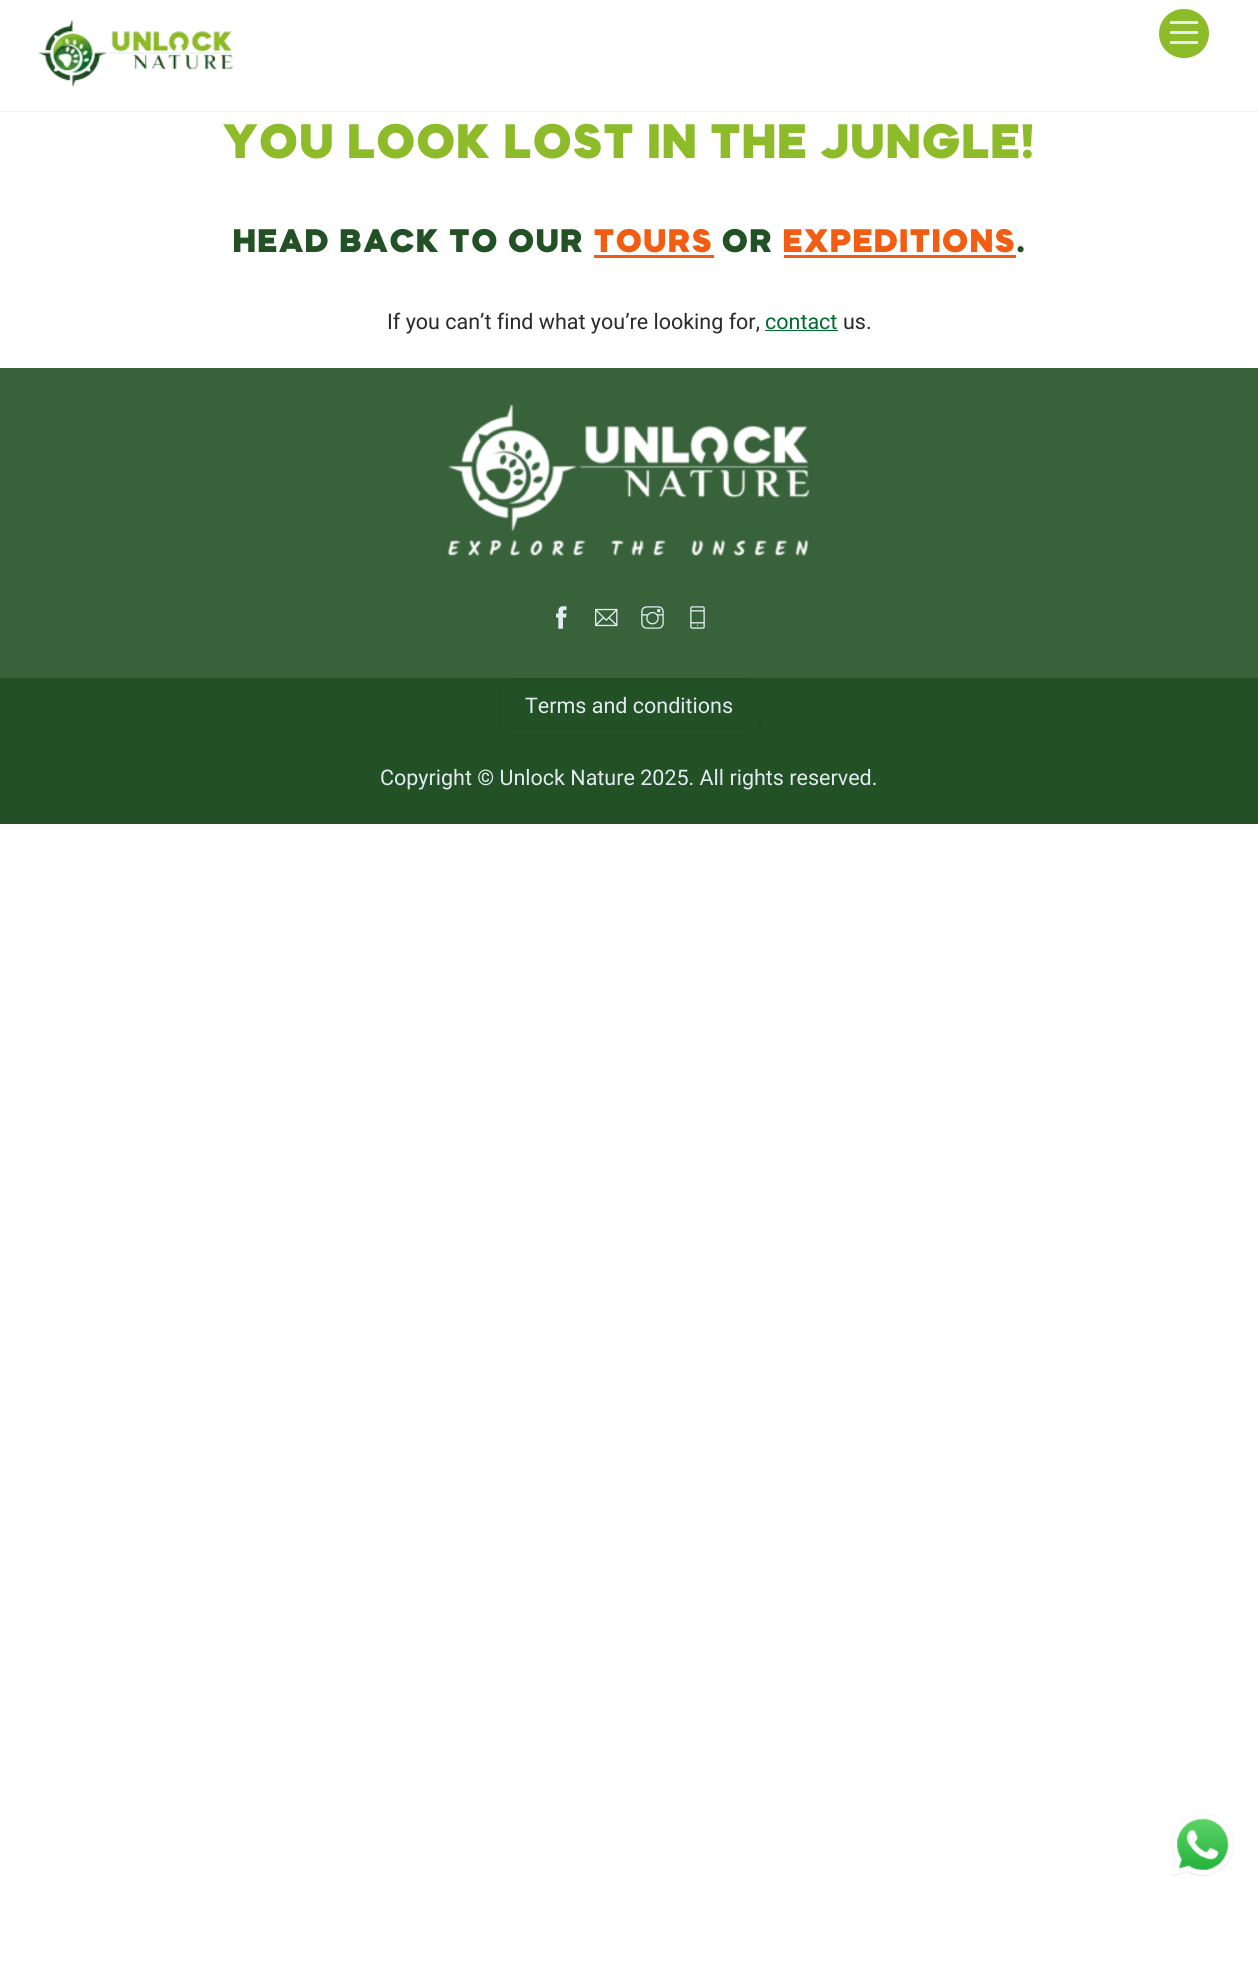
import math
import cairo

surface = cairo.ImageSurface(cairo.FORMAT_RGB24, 1258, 1976)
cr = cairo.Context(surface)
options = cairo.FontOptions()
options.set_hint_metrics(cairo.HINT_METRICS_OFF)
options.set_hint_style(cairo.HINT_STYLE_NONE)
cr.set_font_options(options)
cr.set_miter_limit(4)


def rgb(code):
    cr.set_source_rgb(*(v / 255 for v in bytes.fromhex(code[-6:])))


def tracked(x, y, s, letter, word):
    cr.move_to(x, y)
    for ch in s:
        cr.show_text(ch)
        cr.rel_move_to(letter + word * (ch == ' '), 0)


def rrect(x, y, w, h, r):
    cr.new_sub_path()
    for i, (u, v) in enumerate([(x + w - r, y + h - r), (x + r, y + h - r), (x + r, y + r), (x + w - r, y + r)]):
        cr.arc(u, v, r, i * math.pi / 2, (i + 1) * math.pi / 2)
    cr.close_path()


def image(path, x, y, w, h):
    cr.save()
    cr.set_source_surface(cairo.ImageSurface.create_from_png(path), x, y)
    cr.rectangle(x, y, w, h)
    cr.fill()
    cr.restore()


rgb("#ffffff")
cr.paint()
rgb("#f2f2f2")
cr.rectangle(0, 111, 1258, 1)
cr.fill()
image("img/1.png", 38, 19, 195, 69)
rgb("#8dbb29")
rrect(1159, 9, 50, 49, 24.5)
cr.fill()
for x, y, w, h, color in [
    (1170, 41, 28, 3, "#e4ebf2"),
    (1170, 21, 28, 3, "#e4ebf2"),
    (1170, 31, 28, 3, "#e4ebf2"),
    (594, 255, 120, 3, "#f05d13"),
    (784, 255, 232, 3, "#f05d13"),
    (765, 330, 73, 1, "#006b2e"),
    (0, 368, 1258, 310, "#37623a"),
]:
    rgb(color)
    cr.rectangle(x, y, w, h)
    cr.fill()
image("img/2.png", 447, 405, 363, 152)
image("img/3.png", 556, 606, 11, 23)
image("img/4.png", 595, 608, 23, 19)
image("img/5.png", 641, 606, 23, 23)
image("img/6.png", 690, 606, 15, 23)
rgb("#215124")
cr.rectangle(0, 678, 1258, 146)
cr.fill()
rrect(498.5, 678.5, 262, 57, 14.5)
rgb("#1f4d22")
cr.set_line_width(1)
cr.stroke()
image("img/7.png", 1171, 1814, 63, 62)
cr.select_font_face("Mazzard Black")
cr.set_font_size(50)
rgb("#8dbb29")
tracked(223, 158, "YOU LOOK LOST IN THE JUNGLE!", 2.1, 0)
cr.set_font_size(33.75)
rgb("#215124")
tracked(233, 252, "HEAD BACK TO OUR", 2.1, 0)
rgb("#f05d13")
tracked(594, 252, "TOURS", 2.1, 0)
rgb("#215124")
tracked(722, 252, "OR", 2.1, 0)
rgb("#f05d13")
tracked(783, 252, "EXPEDITIONS", 2.1, 0)
rgb("#215124")
tracked(1017, 252, ".", 2.1, 0)
cr.select_font_face("Roboto")
cr.set_font_size(21.5)
rgb("#2b2929")
cr.move_to(387, 329)
cr.show_text("If you can’t find what you’re looking for,")
rgb("#006b2e")
cr.move_to(765, 329)
cr.show_text("contact")
rgb("#2b2929")
cr.move_to(843, 329)
cr.show_text("us.")
rgb("#e4ebf2")
cr.move_to(525, 713)
cr.show_text("Terms and conditions")
cr.move_to(380, 785)
cr.show_text("Copyright © Unlock Nature 2025. All rights reserved.")
surface.write_to_png("page.png")
